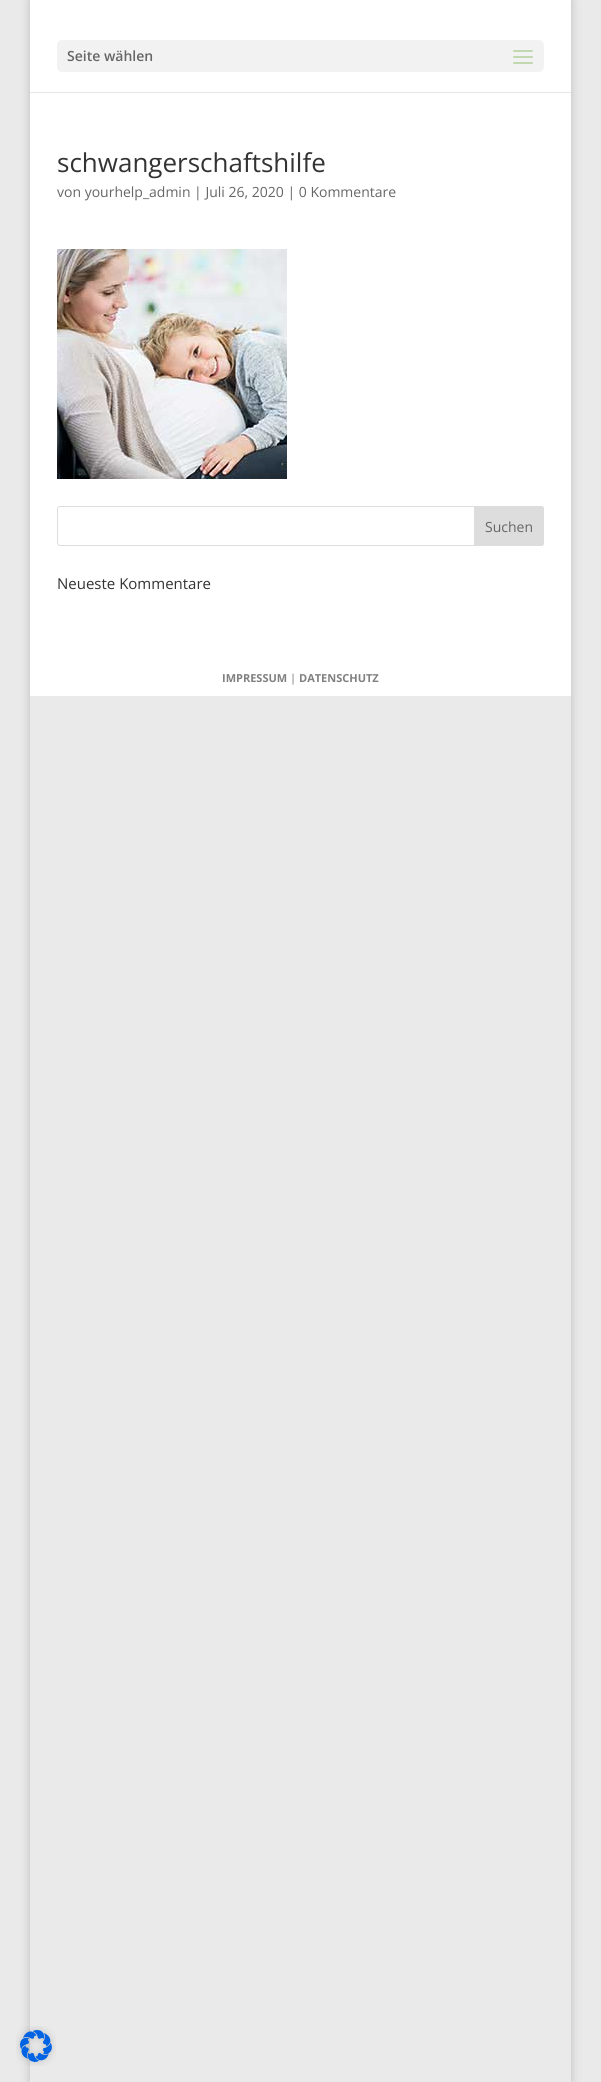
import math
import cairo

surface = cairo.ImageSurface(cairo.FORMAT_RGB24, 601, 2082)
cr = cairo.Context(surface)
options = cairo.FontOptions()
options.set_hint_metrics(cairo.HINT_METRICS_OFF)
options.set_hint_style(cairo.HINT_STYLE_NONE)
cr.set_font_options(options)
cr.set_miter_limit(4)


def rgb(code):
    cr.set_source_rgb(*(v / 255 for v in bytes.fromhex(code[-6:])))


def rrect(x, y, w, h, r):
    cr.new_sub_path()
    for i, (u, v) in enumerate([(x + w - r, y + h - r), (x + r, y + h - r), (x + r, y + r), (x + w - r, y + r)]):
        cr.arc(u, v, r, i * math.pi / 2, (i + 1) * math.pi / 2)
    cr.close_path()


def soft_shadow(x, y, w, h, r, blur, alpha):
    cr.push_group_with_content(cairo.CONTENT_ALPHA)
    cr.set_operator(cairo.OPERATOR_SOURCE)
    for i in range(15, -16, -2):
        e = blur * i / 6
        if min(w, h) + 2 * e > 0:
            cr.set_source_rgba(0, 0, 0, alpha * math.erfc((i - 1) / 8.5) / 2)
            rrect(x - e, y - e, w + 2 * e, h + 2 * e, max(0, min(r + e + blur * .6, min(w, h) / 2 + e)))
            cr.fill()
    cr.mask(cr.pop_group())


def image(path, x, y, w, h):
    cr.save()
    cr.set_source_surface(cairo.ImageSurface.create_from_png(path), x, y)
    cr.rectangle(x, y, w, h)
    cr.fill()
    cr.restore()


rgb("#eaeaea")
cr.paint()
cr.save()
cr.set_fill_rule(cairo.FILL_RULE_EVEN_ODD)
cr.new_path()
cr.move_to(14, 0)
cr.line_to(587, 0)
cr.line_to(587, 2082)
cr.line_to(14, 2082)
cr.close_path()
cr.move_to(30, 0)
cr.line_to(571, 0)
cr.line_to(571, 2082)
cr.line_to(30, 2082)
cr.close_path()
cr.clip()
rgb("#000000")
soft_shadow(30, 0, 541, 2082, 0, 5, 0.2)
cr.restore()
rgb("#e6e6e6")
cr.rectangle(30, 92, 541, 1)
cr.fill()
rgb("#ffffff")
cr.rectangle(30, 0, 541, 92)
cr.fill()
rgb("#f2f2f2")
rrect(57, 40, 487, 32, 5)
cr.fill()
image("img/1.png", 513, 50, 20, 14)
rgb("#ffffff")
cr.rectangle(30, 93, 541, 603)
cr.fill()
image("img/2.png", 57, 249, 230, 230)
rrect(57.5, 506.5, 486, 39, 2.5)
rgb("#dddddd")
cr.set_line_width(1)
cr.stroke()
cr.new_path()
cr.move_to(474.5, 506.5)
cr.line_to(541, 506.5)
cr.curve_to(542.5, 506.5, 543.5, 507.5, 543.5, 509)
cr.line_to(543.5, 543)
cr.curve_to(543.5, 544.5, 542.5, 545.5, 541, 545.5)
cr.line_to(474.5, 545.5)
cr.close_path()
cr.fill_preserve()
cr.stroke()
image("img/3.png", 16, 2026, 40, 40)
cr.select_font_face("Open Sans SemiBold")
cr.set_font_size(14)
rgb("#666666")
cr.move_to(67, 61)
cr.show_text("Seite wählen")
cr.select_font_face("Open Sans")
cr.set_font_size(26)
rgb("#333333")
cr.move_to(57, 172)
cr.show_text("schwangerschaftshilfe")
cr.set_font_size(14)
rgb("#666666")
cr.move_to(57, 197)
cr.show_text("von yourhelp_admin | Juli 26, 2020 | 0 Kommentare")
cr.move_to(485, 532)
cr.show_text("Suchen")
cr.set_font_size(15)
rgb("#333333")
cr.move_to(57, 589)
cr.show_text("Neueste Kommentare")
cr.select_font_face("Open Sans", cairo.FONT_SLANT_NORMAL, cairo.FONT_WEIGHT_BOLD)
cr.set_font_size(11)
rgb("#808080")
cr.move_to(222, 682)
cr.show_text("IMPRESSUM")
cr.select_font_face("Open Sans Medium")
cr.move_to(290, 682)
cr.show_text("|")
cr.select_font_face("Open Sans", cairo.FONT_SLANT_NORMAL, cairo.FONT_WEIGHT_BOLD)
cr.move_to(299, 682)
cr.show_text("DATENSCHUTZ")
surface.write_to_png("page.png")
